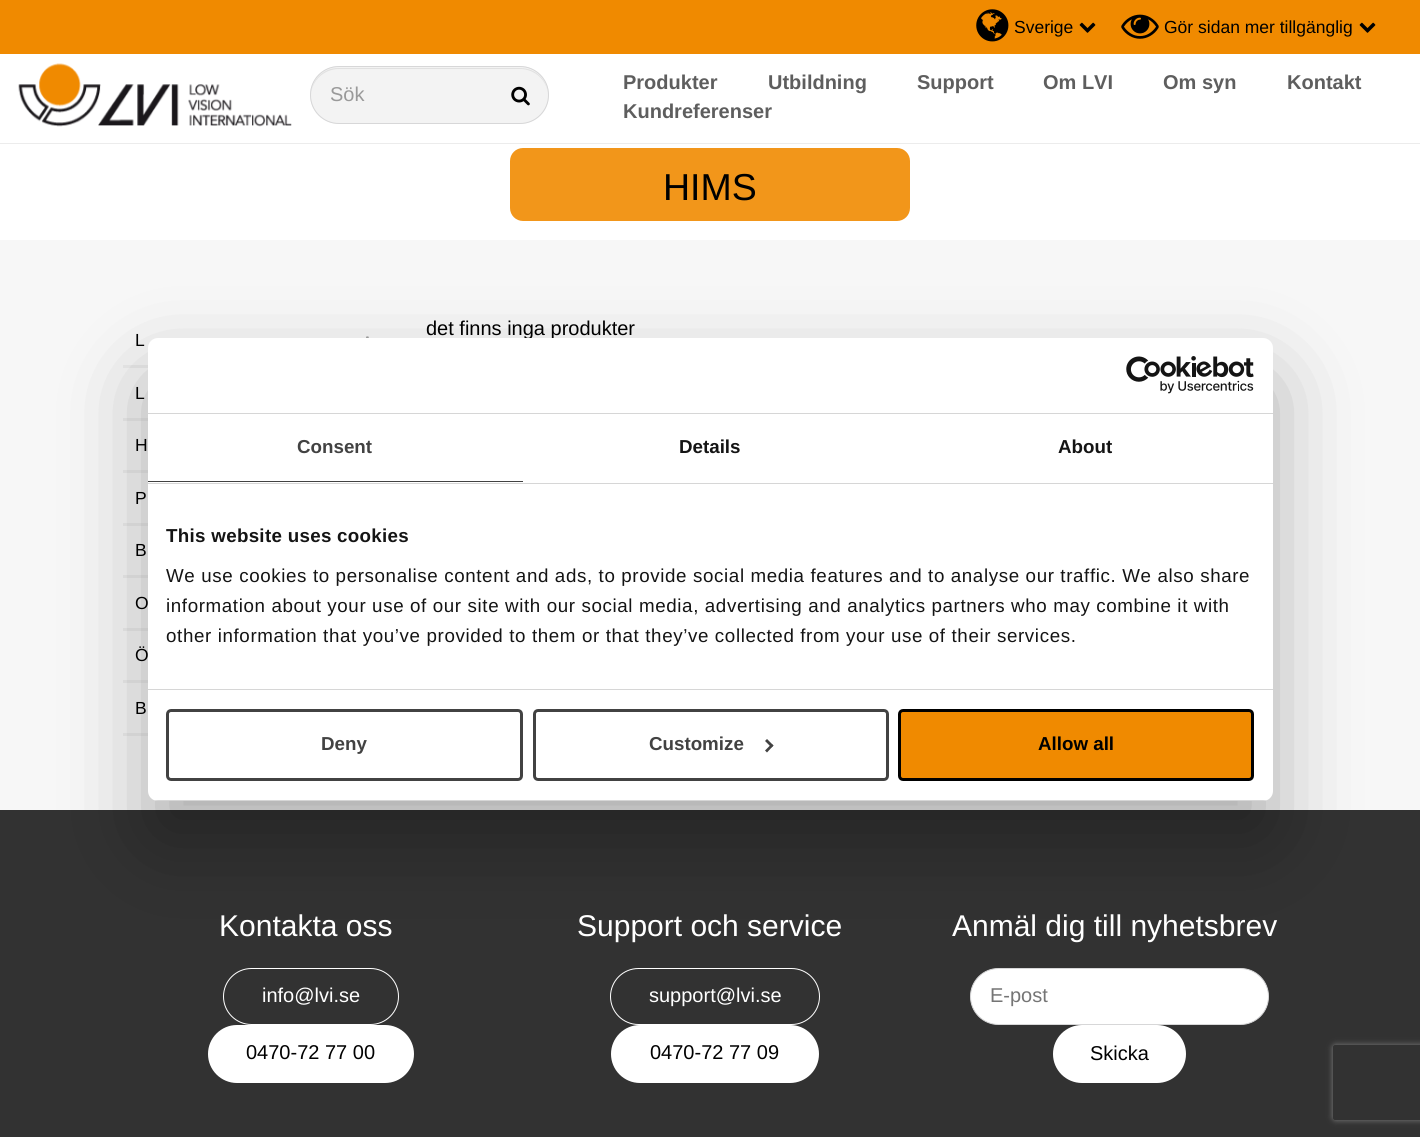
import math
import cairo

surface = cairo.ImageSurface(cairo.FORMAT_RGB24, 1420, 1137)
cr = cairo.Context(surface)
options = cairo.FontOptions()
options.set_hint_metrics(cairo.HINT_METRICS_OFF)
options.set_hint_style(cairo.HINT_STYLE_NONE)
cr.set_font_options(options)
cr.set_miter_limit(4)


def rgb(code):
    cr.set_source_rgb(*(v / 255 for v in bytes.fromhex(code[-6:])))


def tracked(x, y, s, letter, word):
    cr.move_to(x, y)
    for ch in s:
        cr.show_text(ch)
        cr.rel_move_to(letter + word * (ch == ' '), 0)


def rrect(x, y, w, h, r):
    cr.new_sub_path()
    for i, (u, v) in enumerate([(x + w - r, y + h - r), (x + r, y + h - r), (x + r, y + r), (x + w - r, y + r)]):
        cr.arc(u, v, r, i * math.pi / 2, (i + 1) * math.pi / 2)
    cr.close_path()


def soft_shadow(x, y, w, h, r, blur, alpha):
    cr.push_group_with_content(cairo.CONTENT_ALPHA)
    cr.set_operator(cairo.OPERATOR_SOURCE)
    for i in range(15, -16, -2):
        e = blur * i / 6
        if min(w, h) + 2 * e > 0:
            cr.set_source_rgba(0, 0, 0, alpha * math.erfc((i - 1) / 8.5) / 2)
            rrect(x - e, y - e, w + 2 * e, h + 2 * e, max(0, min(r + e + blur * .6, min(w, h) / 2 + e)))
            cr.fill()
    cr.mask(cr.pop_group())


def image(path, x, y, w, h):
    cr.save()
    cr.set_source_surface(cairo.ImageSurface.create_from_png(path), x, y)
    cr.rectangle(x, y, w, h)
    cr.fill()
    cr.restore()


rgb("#f7f7f7")
cr.paint()
rgb("#ececec")
cr.rectangle(0, 143, 1420, 1)
cr.fill()
rgb("#f08a00")
cr.rectangle(0, 0, 1420, 54)
cr.fill()
image("img/1.png", 976, 9, 33, 33)
image("img/2.png", 1079, 22, 17, 11)
image("img/3.png", 1121, 14, 38, 25)
image("img/2.png", 1359, 22, 17, 11)
rgb("#ffffff")
cr.rectangle(0, 54, 1420, 89)
cr.fill()
image("img/4.png", 18, 63, 274, 64)
rgb("#f3f3f3")
rrect(310, 66, 239, 58, 29)
cr.fill()
rgb("#e1e1e1")
cr.new_path()
cr.move_to(339, 69)
cr.line_to(520, 69)
cr.curve_to(535, 69, 548, 81, 548, 96)
cr.curve_to(548, 80, 536, 68, 520, 68)
cr.line_to(338, 68)
cr.curve_to(323, 68, 311, 80, 311, 96)
cr.curve_to(311, 81, 324, 69, 339, 69)
cr.close_path()
cr.fill()
rrect(310.5, 66.5, 238, 57, 28.5)
rgb("#d7d7d8")
cr.set_line_width(1)
cr.stroke()
image("img/5.png", 511, 86, 19, 20)
rgb("#ffffff")
cr.rectangle(0, 144, 1420, 96)
cr.fill()
rgb("#f2961a")
rrect(510, 148, 400, 73, 13)
cr.fill()
rgb("#ececec")
cr.rectangle(123, 365, 25, 3)
cr.fill()
image("img/6.png", 366, 336, 3, 2)
for x, y, w, h, color in [
    (123, 418, 25, 3, "#ececec"),
    (123, 470, 25, 3, "#ececec"),
    (123, 523, 25, 3, "#ececec"),
    (123, 575, 25, 3, "#ececec"),
    (123, 628, 25, 3, "#ececec"),
    (123, 680, 25, 3, "#ececec"),
    (123, 733, 25, 3, "#ececec"),
    (0, 810, 1420, 327, "#323232"),
]:
    rgb(color)
    cr.rectangle(x, y, w, h)
    cr.fill()
rrect(223.5, 968.5, 175, 56, 28)
rgb("#ffffff")
cr.stroke()
rrect(610.5, 968.5, 209, 56, 28)
cr.stroke()
rrect(970.5, 968.5, 298, 56, 28)
cr.fill_preserve()
rgb("#d7d7d8")
cr.stroke()
rgb("#000000")
soft_shadow(148, 378, 1125, 463, 10, 42.5, 0.3)
rgb("#ffffff")
rrect(208, 1025, 206, 58, 29)
cr.fill()
rrect(611, 1025, 208, 58, 29)
cr.fill()
rrect(1053, 1025, 133, 58, 29)
cr.fill()
cr.save()
cr.set_fill_rule(cairo.FILL_RULE_EVEN_ODD)
cr.new_path()
cr.move_to(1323, 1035)
cr.line_to(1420, 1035)
cr.line_to(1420, 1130)
cr.line_to(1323, 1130)
cr.close_path()
cr.move_to(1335.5, 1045)
cr.line_to(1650.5, 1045)
cr.curve_to(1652, 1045, 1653, 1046, 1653, 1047.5)
cr.line_to(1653, 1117.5)
cr.curve_to(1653, 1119, 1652, 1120, 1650.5, 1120)
cr.line_to(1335.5, 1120)
cr.curve_to(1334, 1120, 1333, 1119, 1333, 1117.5)
cr.line_to(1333, 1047.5)
cr.curve_to(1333, 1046, 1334, 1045, 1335.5, 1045)
cr.close_path()
cr.clip()
rgb("#808080")
soft_shadow(1333, 1045, 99, 75, 2.5, 3, 1)
cr.restore()
cr.select_font_face("Liberation Sans")
cr.set_font_size(17.5)
rgb("#000000")
cr.move_to(1014, 33)
cr.show_text("Sverige")
cr.move_to(1164, 33)
cr.show_text("Gör sidan mer tillgänglig")
cr.set_font_size(20)
rgb("#999999")
cr.move_to(330, 101)
cr.show_text("Sök")
cr.select_font_face("Liberation Sans", cairo.FONT_SLANT_NORMAL, cairo.FONT_WEIGHT_BOLD)
rgb("#5e5e5e")
for x, y, s in [
    (623, 89, "Produkter"),
    (768, 89, "Utbildning"),
    (917, 89, "Support"),
    (1043, 89, "Om LVI"),
    (1163, 89, "Om syn"),
    (1287, 89, "Kontakt"),
    (623, 118, "Kundreferenser"),
]:
    cr.move_to(x, y)
    cr.show_text(s)
cr.select_font_face("Liberation Sans")
cr.set_font_size(37.5)
rgb("#000000")
cr.move_to(663, 200)
cr.show_text("HIMS")
cr.set_font_size(20)
cr.move_to(426, 335)
cr.show_text("det finns inga produkter")
cr.set_font_size(17.5)
for x, y, s in [
    (135, 346, "L"),
    (135, 399, "L"),
    (135, 451, "H"),
    (135, 504, "P"),
    (135, 556, "B"),
    (135, 609, "O"),
    (135, 661, "Ö"),
    (135, 714, "B"),
]:
    cr.move_to(x, y)
    cr.show_text(s)
rgb("#ffffff")
rrect(148, 338, 1125, 463, 10)
cr.fill()
rgb("#d6d6d6")
cr.rectangle(148, 413, 1125, 1)
cr.fill()
image("img/7.png", 1126, 356, 128, 38)
cr.rectangle(148, 483, 1125, 1)
cr.fill()
rgb("#424242")
cr.rectangle(148, 481, 375, 1)
cr.fill()
cr.select_font_face("Liberation Sans", cairo.FONT_SLANT_NORMAL, cairo.FONT_WEIGHT_BOLD)
cr.set_font_size(18.75)
cr.move_to(297, 453)
cr.show_text("Consent")
rgb("#141414")
cr.move_to(679, 453)
cr.show_text("Details")
cr.move_to(1058, 453)
cr.show_text("About")
rgb("#d6d6d6")
cr.rectangle(148, 689, 1125, 1)
cr.fill()
rgb("#141414")
tracked(166, 542, "This website uses cookies", 0.3, 0)
cr.select_font_face("Liberation Sans")
for x, y, s in [
    (166, 582, "We use cookies to personalise content and ads, to provide social media features and to analyse our traffic. We also share"),
    (166, 612, "information about your use of our site with our social media, advertising and analytics partners who may combine it with"),
    (166, 642, "other information that you’ve provided to them or that they’ve collected from your use of their services."),
]:
    tracked(x, y, s, 0.62, 0)
cr.save()
rrect(148, 338, 1125, 463, 10)
cr.clip()
rgb("#d6d6d6")
cr.rectangle(148, 800, 1125, 1)
cr.fill()
cr.restore()
rrect(167.5, 710.5, 354, 69, 3.5)
rgb("#424242")
cr.set_line_width(3)
cr.stroke()
cr.select_font_face("Liberation Sans", cairo.FONT_SLANT_NORMAL, cairo.FONT_WEIGHT_BOLD)
cr.move_to(321, 750)
cr.show_text("Deny")
rrect(534.5, 710.5, 353, 69, 3.5)
cr.stroke()
cr.move_to(649, 750)
cr.show_text("Customize")
cr.new_path()
cr.move_to(767, 739)
cr.line_to(773.5, 745.5)
cr.line_to(771.5, 747.5)
cr.line_to(765, 741)
cr.close_path()
cr.fill()
cr.new_path()
cr.move_to(771.5, 744)
cr.line_to(773.5, 745.5)
cr.line_to(767, 752.5)
cr.line_to(765, 750.5)
cr.close_path()
cr.fill()
rgb("#f08a00")
rrect(899.5, 710.5, 353, 69, 3.5)
cr.fill_preserve()
rgb("#000000")
cr.stroke()
cr.move_to(1038, 750)
cr.show_text("Allow all")
cr.select_font_face("Liberation Sans")
cr.set_font_size(30)
rgb("#ffffff")
cr.move_to(219, 936)
cr.show_text("Kontakta oss")
cr.set_font_size(20)
cr.move_to(262, 1002)
cr.show_text("info@lvi.se")
rgb("#000000")
cr.move_to(246, 1059)
cr.show_text("0470-72 77 00")
cr.set_font_size(30)
rgb("#ffffff")
cr.move_to(577, 936)
cr.show_text("Support och service")
cr.set_font_size(20)
cr.move_to(649, 1002)
cr.show_text("support@lvi.se")
rgb("#000000")
cr.move_to(650, 1059)
cr.show_text("0470-72 77 09")
cr.set_font_size(30)
rgb("#ffffff")
cr.move_to(952, 936)
cr.show_text("Anmäl dig till nyhetsbrev")
cr.set_font_size(20)
rgb("#757575")
cr.move_to(990, 1002)
cr.show_text("E-post")
rgb("#000000")
cr.move_to(1090, 1060)
cr.show_text("Skicka")
surface.write_to_png("page.png")
